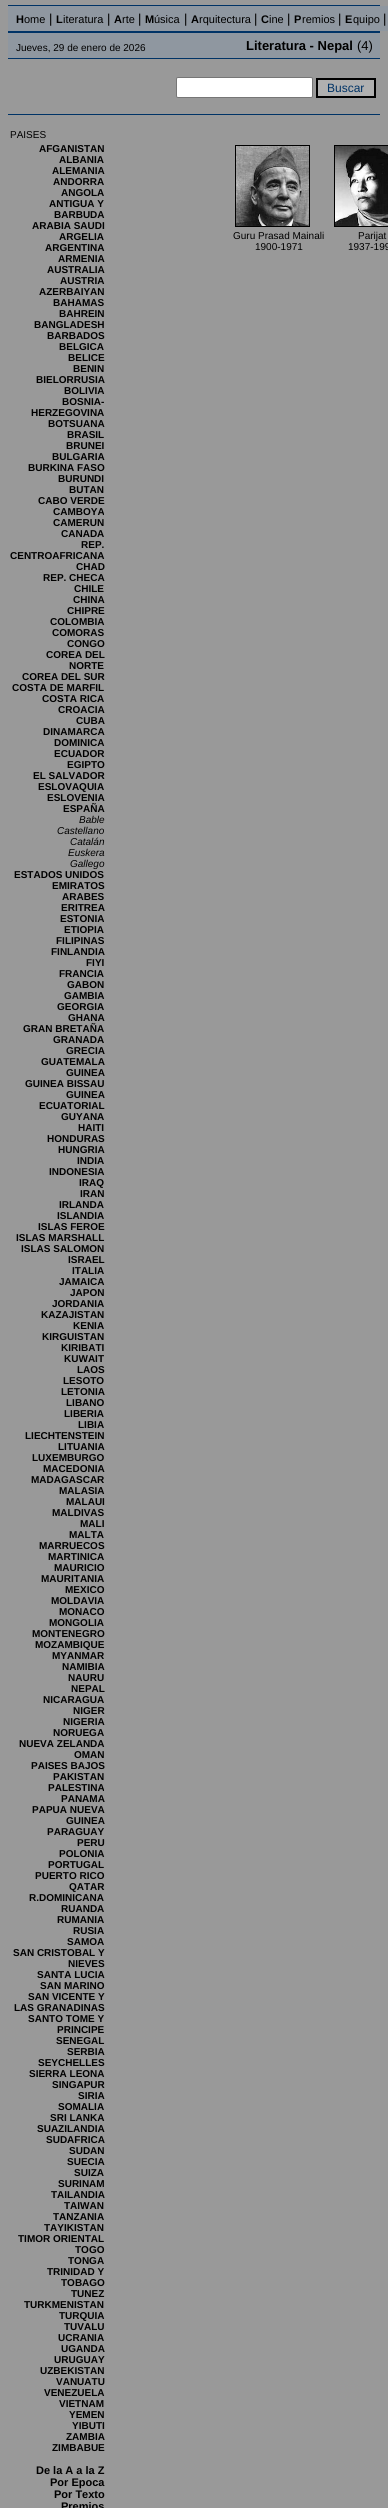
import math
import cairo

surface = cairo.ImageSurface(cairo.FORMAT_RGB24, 388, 2508)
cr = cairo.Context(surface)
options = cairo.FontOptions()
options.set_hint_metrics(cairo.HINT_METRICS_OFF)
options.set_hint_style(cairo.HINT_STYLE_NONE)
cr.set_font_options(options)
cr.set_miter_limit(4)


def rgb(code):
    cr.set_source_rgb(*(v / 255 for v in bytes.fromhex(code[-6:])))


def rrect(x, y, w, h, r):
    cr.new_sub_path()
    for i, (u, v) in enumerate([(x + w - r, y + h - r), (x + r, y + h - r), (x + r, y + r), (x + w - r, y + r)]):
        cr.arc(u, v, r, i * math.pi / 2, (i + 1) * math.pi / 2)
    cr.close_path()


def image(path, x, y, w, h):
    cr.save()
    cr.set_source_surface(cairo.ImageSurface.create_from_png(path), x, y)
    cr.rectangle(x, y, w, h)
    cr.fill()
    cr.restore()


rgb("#999999")
cr.paint()
for x, y, w, h, color in [
    (8, 5, 372, 1, "#003366"),
    (8, 6, 380, 25, "#8f97a0"),
    (8, 31, 372, 2, "#003366"),
    (8, 33, 372, 25, "#8f97a0"),
    (8, 58, 372, 1, "#003366"),
]:
    rgb(color)
    cr.rectangle(x, y, w, h)
    cr.fill()
rgb("#ffffff")
rrect(176.5, 77.5, 136, 20, 1.5)
cr.fill_preserve()
rgb("#767676")
cr.set_line_width(1)
cr.stroke()
rgb("#b0b0b0")
cr.rectangle(317, 79, 58, 18)
cr.fill_preserve()
rgb("#000000")
cr.set_line_width(2)
cr.stroke()
rgb("#003366")
cr.rectangle(8, 114, 372, 1)
cr.fill()
cr.rectangle(235.5, 145.5, 74, 81)
rgb("#000000")
cr.set_line_width(1)
cr.stroke()
image("img/1.png", 236, 146, 73, 80)
cr.rectangle(334.5, 145.5, 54, 81)
cr.stroke()
image("img/2.png", 335, 146, 53, 80)
cr.select_font_face("Liberation Sans", cairo.FONT_SLANT_NORMAL, cairo.FONT_WEIGHT_BOLD)
cr.set_font_size(11)
cr.move_to(16, 23)
cr.show_text("H")
cr.select_font_face("Liberation Sans")
cr.move_to(24, 23)
cr.show_text("ome")
cr.set_font_size(13)
cr.move_to(49, 23)
cr.show_text("|")
cr.select_font_face("Liberation Sans", cairo.FONT_SLANT_NORMAL, cairo.FONT_WEIGHT_BOLD)
cr.set_font_size(11)
cr.move_to(56, 23)
cr.show_text("L")
cr.select_font_face("Liberation Sans")
cr.move_to(63, 23)
cr.show_text("iteratura")
cr.set_font_size(13)
cr.move_to(107, 23)
cr.show_text("|")
cr.select_font_face("Liberation Sans", cairo.FONT_SLANT_NORMAL, cairo.FONT_WEIGHT_BOLD)
cr.set_font_size(11)
cr.move_to(114, 23)
cr.show_text("A")
cr.select_font_face("Liberation Sans")
cr.move_to(122, 23)
cr.show_text("rte")
cr.set_font_size(13)
cr.move_to(138, 23)
cr.show_text("|")
cr.select_font_face("Liberation Sans", cairo.FONT_SLANT_NORMAL, cairo.FONT_WEIGHT_BOLD)
cr.set_font_size(11)
cr.move_to(145, 23)
cr.show_text("M")
cr.select_font_face("Liberation Sans")
cr.move_to(154, 23)
cr.show_text("úsica")
cr.set_font_size(13)
cr.move_to(184, 23)
cr.show_text("|")
cr.select_font_face("Liberation Sans", cairo.FONT_SLANT_NORMAL, cairo.FONT_WEIGHT_BOLD)
cr.set_font_size(11)
cr.move_to(191, 23)
cr.show_text("A")
cr.select_font_face("Liberation Sans")
cr.move_to(199, 23)
cr.show_text("rquitectura")
cr.set_font_size(13)
cr.move_to(254, 23)
cr.show_text("|")
cr.select_font_face("Liberation Sans", cairo.FONT_SLANT_NORMAL, cairo.FONT_WEIGHT_BOLD)
cr.set_font_size(11)
cr.move_to(261, 23)
cr.show_text("C")
cr.select_font_face("Liberation Sans")
cr.move_to(269, 23)
cr.show_text("ine")
cr.set_font_size(13)
cr.move_to(287, 23)
cr.show_text("|")
cr.select_font_face("Liberation Sans", cairo.FONT_SLANT_NORMAL, cairo.FONT_WEIGHT_BOLD)
cr.set_font_size(11)
cr.move_to(294, 23)
cr.show_text("P")
cr.select_font_face("Liberation Sans")
cr.move_to(302, 23)
cr.show_text("remios")
cr.set_font_size(13)
cr.move_to(338, 23)
cr.show_text("|")
cr.select_font_face("Liberation Sans", cairo.FONT_SLANT_NORMAL, cairo.FONT_WEIGHT_BOLD)
cr.set_font_size(11)
cr.move_to(345, 23)
cr.show_text("E")
cr.select_font_face("Liberation Sans")
cr.move_to(353, 23)
cr.show_text("quipo")
cr.set_font_size(13)
cr.move_to(383, 23)
cr.show_text("|")
cr.set_font_size(10)
cr.move_to(16, 51)
cr.show_text("Jueves, 29 de enero de 2026")
cr.select_font_face("Liberation Sans", cairo.FONT_SLANT_NORMAL, cairo.FONT_WEIGHT_BOLD)
cr.set_font_size(13)
cr.move_to(246, 50)
cr.show_text("Literatura - Nepal")
cr.select_font_face("Liberation Sans")
cr.move_to(357, 50)
cr.show_text("(4)")
cr.set_font_size(12)
rgb("#003366")
cr.move_to(327, 92)
cr.show_text("Buscar")
cr.set_font_size(10)
rgb("#000000")
cr.move_to(10, 138)
cr.show_text("PAISES")
cr.select_font_face("Liberation Sans", cairo.FONT_SLANT_NORMAL, cairo.FONT_WEIGHT_BOLD)
for x, y, s in [
    (39, 152, "AFGANISTAN"),
    (59, 163, "ALBANIA"),
    (52, 174, "ALEMANIA"),
    (53, 185, "ANDORRA"),
    (61, 196, "ANGOLA"),
    (49, 207, "ANTIGUA Y"),
    (54, 218, "BARBUDA"),
    (32, 229, "ARABIA SAUDI"),
    (59, 240, "ARGELIA"),
    (45, 251, "ARGENTINA"),
    (58, 262, "ARMENIA"),
    (47, 273, "AUSTRALIA"),
    (60, 284, "AUSTRIA"),
    (39, 295, "AZERBAIYAN"),
    (53, 306, "BAHAMAS"),
    (59, 317, "BAHREIN"),
    (34, 328, "BANGLADESH"),
    (47, 339, "BARBADOS"),
    (59, 350, "BELGICA"),
    (68, 361, "BELICE"),
    (73, 372, "BENIN"),
    (36, 383, "BIELORRUSIA"),
    (64, 394, "BOLIVIA"),
    (62, 405, "BOSNIA-"),
    (31, 416, "HERZEGOVINA"),
    (48, 427, "BOTSUANA"),
    (67, 438, "BRASIL"),
    (66, 449, "BRUNEI"),
    (52, 460, "BULGARIA"),
    (28, 471, "BURKINA FASO"),
    (58, 482, "BURUNDI"),
    (69, 493, "BUTAN"),
    (38, 504, "CABO VERDE"),
    (53, 515, "CAMBOYA"),
    (53, 526, "CAMERUN"),
    (61, 537, "CANADA"),
    (81, 548, "REP."),
    (10, 559, "CENTROAFRICANA"),
    (76, 570, "CHAD"),
    (43, 581, "REP. CHECA"),
    (74, 592, "CHILE"),
    (73, 603, "CHINA"),
    (67, 614, "CHIPRE"),
    (50, 625, "COLOMBIA"),
    (52, 636, "COMORAS"),
    (67, 647, "CONGO"),
    (46, 658, "COREA DEL"),
    (69, 669, "NORTE"),
    (22, 680, "COREA DEL SUR"),
    (12, 691, "COSTA DE MARFIL"),
    (42, 702, "COSTA RICA"),
    (58, 713, "CROACIA"),
    (76, 724, "CUBA"),
    (43, 735, "DINAMARCA"),
    (54, 746, "DOMINICA"),
    (54, 757, "ECUADOR"),
    (67, 768, "EGIPTO"),
    (33, 779, "EL SALVADOR"),
    (38, 790, "ESLOVAQUIA"),
    (47, 801, "ESLOVENIA"),
    (63, 812, "ESPAÑA"),
]:
    cr.move_to(x, y)
    cr.show_text(s)
cr.select_font_face("Liberation Sans", cairo.FONT_SLANT_ITALIC)
for x, y, s in [
    (79, 823, "Bable"),
    (57, 834, "Castellano"),
    (70, 845, "Catalán"),
    (68, 856, "Euskera"),
    (70, 867, "Gallego"),
]:
    cr.move_to(x, y)
    cr.show_text(s)
cr.select_font_face("Liberation Sans", cairo.FONT_SLANT_NORMAL, cairo.FONT_WEIGHT_BOLD)
for x, y, s in [
    (14, 878, "ESTADOS UNIDOS"),
    (52, 889, "EMIRATOS"),
    (62, 900, "ARABES"),
    (61, 911, "ERITREA"),
    (60, 922, "ESTONIA"),
    (64, 933, "ETIOPIA"),
    (56, 944, "FILIPINAS"),
    (51, 955, "FINLANDIA"),
    (86, 966, "FIYI"),
    (59, 977, "FRANCIA"),
    (67, 988, "GABON"),
    (64, 999, "GAMBIA"),
    (57, 1010, "GEORGIA"),
    (68, 1021, "GHANA"),
    (23, 1032, "GRAN BRETAÑA"),
    (53, 1043, "GRANADA"),
    (66, 1054, "GRECIA"),
    (41, 1065, "GUATEMALA"),
    (66, 1076, "GUINEA"),
    (25, 1087, "GUINEA BISSAU"),
    (66, 1098, "GUINEA"),
    (39, 1109, "ECUATORIAL"),
    (61, 1120, "GUYANA"),
    (78, 1131, "HAITI"),
    (47, 1142, "HONDURAS"),
    (58, 1153, "HUNGRIA"),
    (77, 1164, "INDIA"),
    (49, 1175, "INDONESIA"),
    (79, 1186, "IRAQ"),
    (80, 1197, "IRAN"),
    (59, 1208, "IRLANDA"),
    (57, 1219, "ISLANDIA"),
    (38, 1230, "ISLAS FEROE"),
    (16, 1241, "ISLAS MARSHALL"),
    (21, 1252, "ISLAS SALOMON"),
    (68, 1263, "ISRAEL"),
    (72, 1274, "ITALIA"),
    (59, 1285, "JAMAICA"),
    (70, 1296, "JAPON"),
    (52, 1307, "JORDANIA"),
    (41, 1318, "KAZAJISTAN"),
    (73, 1329, "KENIA"),
    (42, 1340, "KIRGUISTAN"),
    (61, 1351, "KIRIBATI"),
    (64, 1362, "KUWAIT"),
    (77, 1373, "LAOS"),
    (63, 1384, "LESOTO"),
    (61, 1395, "LETONIA"),
    (66, 1406, "LIBANO"),
    (64, 1417, "LIBERIA"),
    (78, 1428, "LIBIA"),
    (25, 1439, "LIECHTENSTEIN"),
    (58, 1450, "LITUANIA"),
    (32, 1461, "LUXEMBURGO"),
    (43, 1472, "MACEDONIA"),
    (31, 1483, "MADAGASCAR"),
    (59, 1494, "MALASIA"),
    (66, 1505, "MALAUI"),
    (52, 1516, "MALDIVAS"),
    (80, 1527, "MALI"),
    (69, 1538, "MALTA"),
    (39, 1549, "MARRUECOS"),
    (48, 1560, "MARTINICA"),
    (54, 1571, "MAURICIO"),
    (41, 1582, "MAURITANIA"),
    (65, 1593, "MEXICO"),
    (51, 1604, "MOLDAVIA"),
    (59, 1615, "MONACO"),
    (49, 1626, "MONGOLIA"),
    (32, 1637, "MONTENEGRO"),
    (35, 1648, "MOZAMBIQUE"),
    (52, 1659, "MYANMAR"),
    (62, 1670, "NAMIBIA"),
    (68, 1681, "NAURU"),
    (71, 1692, "NEPAL"),
    (43, 1703, "NICARAGUA"),
    (73, 1714, "NIGER"),
    (63, 1725, "NIGERIA"),
    (53, 1736, "NORUEGA"),
    (19, 1747, "NUEVA ZELANDA"),
    (74, 1758, "OMAN"),
    (31, 1769, "PAISES BAJOS"),
    (53, 1780, "PAKISTAN"),
    (48, 1791, "PALESTINA"),
    (61, 1802, "PANAMA"),
    (32, 1813, "PAPUA NUEVA"),
    (66, 1824, "GUINEA"),
    (47, 1835, "PARAGUAY"),
    (77, 1846, "PERU"),
    (59, 1857, "POLONIA"),
    (48, 1868, "PORTUGAL"),
    (35, 1879, "PUERTO RICO"),
    (69, 1890, "QATAR"),
    (29, 1901, "R.DOMINICANA"),
    (61, 1912, "RUANDA"),
    (57, 1923, "RUMANIA"),
    (73, 1934, "RUSIA"),
    (67, 1945, "SAMOA"),
    (13, 1956, "SAN CRISTOBAL Y"),
    (68, 1967, "NIEVES"),
    (37, 1978, "SANTA LUCIA"),
    (40, 1989, "SAN MARINO"),
    (28, 2000, "SAN VICENTE Y"),
    (14, 2011, "LAS GRANADINAS"),
    (28, 2022, "SANTO TOME Y"),
    (57, 2033, "PRINCIPE"),
    (56, 2044, "SENEGAL"),
    (67, 2055, "SERBIA"),
    (38, 2066, "SEYCHELLES"),
    (29, 2077, "SIERRA LEONA"),
    (52, 2088, "SINGAPUR"),
    (78, 2099, "SIRIA"),
    (58, 2110, "SOMALIA"),
    (50, 2121, "SRI LANKA"),
    (37, 2132, "SUAZILANDIA"),
    (46, 2143, "SUDAFRICA"),
    (69, 2154, "SUDAN"),
    (67, 2165, "SUECIA"),
    (74, 2176, "SUIZA"),
    (58, 2187, "SURINAM"),
    (51, 2198, "TAILANDIA"),
    (64, 2209, "TAIWAN"),
    (53, 2220, "TANZANIA"),
    (44, 2231, "TAYIKISTAN"),
    (18, 2242, "TIMOR ORIENTAL"),
    (75, 2253, "TOGO"),
    (68, 2264, "TONGA"),
    (47, 2275, "TRINIDAD Y"),
    (61, 2286, "TOBAGO"),
    (71, 2297, "TUNEZ"),
    (24, 2308, "TURKMENISTAN"),
    (59, 2319, "TURQUIA"),
    (64, 2330, "TUVALU"),
    (58, 2341, "UCRANIA"),
    (61, 2352, "UGANDA"),
    (54, 2363, "URUGUAY"),
    (40, 2374, "UZBEKISTAN"),
    (56, 2385, "VANUATU"),
    (44, 2396, "VENEZUELA"),
    (59, 2407, "VIETNAM"),
    (69, 2418, "YEMEN"),
    (72, 2429, "YIBUTI"),
    (66, 2440, "ZAMBIA"),
    (52, 2451, "ZIMBABUE"),
]:
    cr.move_to(x, y)
    cr.show_text(s)
cr.set_font_size(11)
for x, y, s in [
    (36, 2474, "De la A a la Z"),
    (50, 2486, "Por Epoca"),
    (54, 2498, "Por Texto"),
    (61, 2510, "Premios"),
]:
    cr.move_to(x, y)
    cr.show_text(s)
cr.select_font_face("Liberation Sans")
cr.set_font_size(10)
for x, y, s in [
    (233, 239, "Guru Prasad Mainali"),
    (255, 250, "1900-1971"),
    (358, 239, "Parijat"),
    (348, 250, "1937-199"),
]:
    cr.move_to(x, y)
    cr.show_text(s)
surface.write_to_png("page.png")
